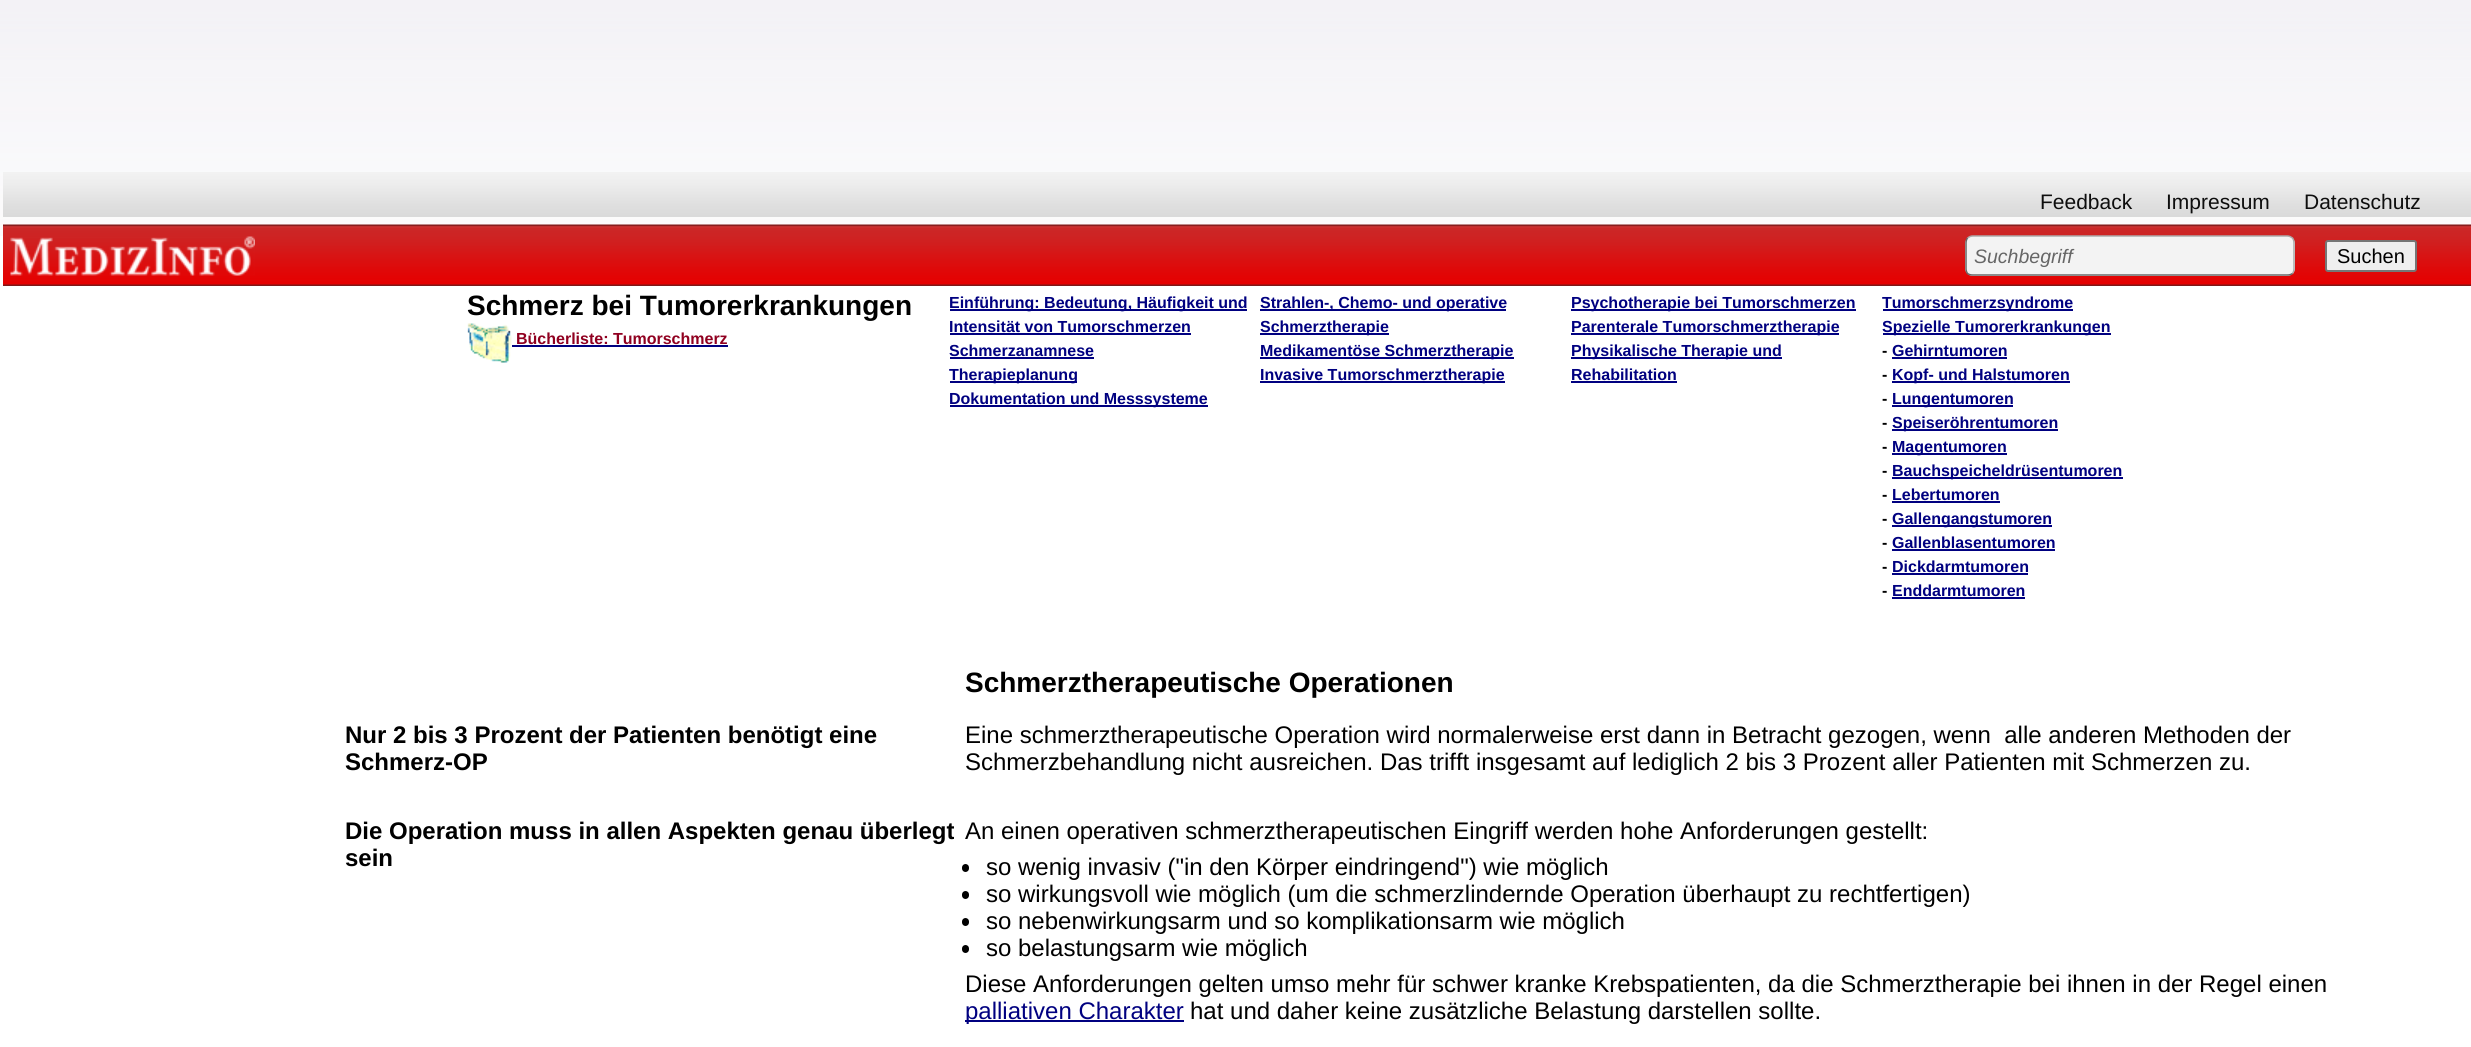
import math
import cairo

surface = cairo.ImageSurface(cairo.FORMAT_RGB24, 2471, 1047)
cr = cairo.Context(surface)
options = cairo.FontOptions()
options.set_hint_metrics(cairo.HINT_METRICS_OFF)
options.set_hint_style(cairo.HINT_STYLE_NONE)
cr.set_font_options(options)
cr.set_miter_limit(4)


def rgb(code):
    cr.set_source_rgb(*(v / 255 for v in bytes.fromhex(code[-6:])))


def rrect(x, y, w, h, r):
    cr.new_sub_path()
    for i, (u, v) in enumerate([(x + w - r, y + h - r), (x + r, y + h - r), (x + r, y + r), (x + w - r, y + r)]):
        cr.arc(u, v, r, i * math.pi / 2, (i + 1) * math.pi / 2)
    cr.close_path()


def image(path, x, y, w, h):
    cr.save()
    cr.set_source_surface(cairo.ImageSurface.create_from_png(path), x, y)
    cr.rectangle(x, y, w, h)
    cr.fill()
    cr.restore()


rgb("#ffffff")
cr.paint()
image("img/1.png", 0, 0, 2471, 236)
image("img/2.png", 3, 172, 2468, 45)
image("img/3.png", 3, 224, 2468, 62)
image("img/4.png", 10, 236, 245, 40)
rgb("#f3f3f3")
rrect(1965, 236, 330, 40, 8)
cr.fill()
cr.new_path()
cr.move_to(1967.5, 238)
cr.curve_to(1969, 237, 1970.5, 236, 1972.5, 236)
cr.line_to(2287.5, 236)
cr.curve_to(2289.5, 236, 2291, 237, 2292.5, 238)
cr.curve_to(2293.5, 239.5, 2294, 241, 2294, 243)
cr.line_to(2294, 268.5)
cr.curve_to(2294, 270.5, 2293.5, 272, 2292.5, 273.5)
rgb("#aaaaaa")
cr.set_line_width(1.5)
cr.stroke()
cr.new_path()
cr.move_to(2292.5, 273.5)
cr.curve_to(2291, 274.5, 2289.5, 275, 2287.5, 275)
cr.line_to(1972.5, 275)
cr.curve_to(1970.5, 275, 1969, 274.5, 1967.5, 273.5)
cr.curve_to(1966.5, 272, 1966, 270.5, 1966, 268.5)
cr.line_to(1966, 243)
cr.curve_to(1966, 241, 1966.5, 239.5, 1967.5, 238)
rgb("#666666")
cr.stroke()
rgb("#efefef")
rrect(2326, 241, 90, 30, 2)
cr.fill_preserve()
rgb("#767676")
cr.set_line_width(2)
cr.stroke()
image("img/5.png", 467, 323, 45, 40)
for x, y, w, h, color in [
    (512, 345, 216, 2, "#000080"),
    (950, 309, 297, 2, "#000080"),
    (950, 333, 241, 2, "#000080"),
    (950, 357, 144, 2, "#000080"),
    (950, 381, 127, 2, "#000080"),
    (950, 405, 258, 2, "#000080"),
    (1260, 309, 246, 2, "#000080"),
    (1260, 333, 129, 2, "#000080"),
    (1260, 357, 254, 2, "#000080"),
    (1260, 381, 245, 2, "#000080"),
    (1571, 309, 285, 2, "#000080"),
    (1571, 333, 268, 2, "#000080"),
    (1571, 357, 211, 2, "#000080"),
    (1571, 381, 106, 2, "#000080"),
    (1883, 309, 190, 2, "#000080"),
    (1883, 333, 228, 2, "#000080"),
    (1892, 357, 115, 2, "#000080"),
    (1892, 381, 178, 2, "#000080"),
    (1892, 405, 121, 2, "#000080"),
    (1892, 429, 166, 2, "#000080"),
    (1892, 453, 115, 2, "#000080"),
    (1892, 477, 231, 2, "#000080"),
    (1892, 501, 108, 2, "#000080"),
    (1892, 525, 160, 2, "#000080"),
    (1892, 549, 163, 2, "#000080"),
    (1892, 573, 136, 2, "#000080"),
    (1892, 597, 133, 2, "#000080"),
]:
    rgb(color)
    cr.rectangle(x, y, w, h)
    cr.fill()
rgb("#000000")
rrect(962, 864, 7, 8, 3.5)
cr.fill()
rrect(962, 891, 7, 8, 3.5)
cr.fill()
rrect(962, 918, 7, 8, 3.5)
cr.fill()
rrect(962, 945, 7, 8, 3.5)
cr.fill()
rgb("#000080")
cr.rectangle(965, 1020, 219, 2)
cr.fill()
cr.select_font_face("Liberation Sans")
cr.set_font_size(21)
rgb("#0e0e0e")
for x, y, s in [
    (2040, 209, "Feedback"),
    (2166, 209, "Impressum"),
    (2304, 209, "Datenschutz"),
]:
    cr.move_to(x, y)
    cr.show_text(s)
cr.select_font_face("Liberation Sans", cairo.FONT_SLANT_ITALIC)
cr.set_font_size(19.5)
rgb("#666666")
cr.move_to(1974, 263)
cr.show_text("Suchbegriff")
cr.select_font_face("Liberation Sans")
cr.set_font_size(20)
rgb("#000000")
cr.move_to(2337, 263)
cr.show_text("Suchen")
cr.select_font_face("Liberation Sans", cairo.FONT_SLANT_NORMAL, cairo.FONT_WEIGHT_BOLD)
cr.set_font_size(28)
cr.move_to(467, 315)
cr.show_text("Schmerz bei Tumorerkrankungen")
cr.set_font_size(16)
rgb("#900020")
cr.move_to(516, 344)
cr.show_text("Bücherliste: Tumorschmerz")
rgb("#000080")
for x, y, s in [
    (949, 308, "Einführung: Bedeutung, Häufigkeit und"),
    (949, 332, "Intensität von Tumorschmerzen"),
    (949, 356, "Schmerzanamnese"),
    (949, 380, "Therapieplanung"),
    (949, 404, "Dokumentation und Messsysteme"),
    (1260, 308, "Strahlen-, Chemo- und operative"),
    (1260, 332, "Schmerztherapie"),
    (1260, 356, "Medikamentöse Schmerztherapie"),
    (1260, 380, "Invasive Tumorschmerztherapie"),
    (1571, 308, "Psychotherapie bei Tumorschmerzen"),
    (1571, 332, "Parenterale Tumorschmerztherapie"),
    (1571, 356, "Physikalische Therapie und"),
    (1571, 380, "Rehabilitation"),
    (1882, 308, "Tumorschmerzsyndrome"),
    (1882, 332, "Spezielle Tumorerkrankungen"),
]:
    cr.move_to(x, y)
    cr.show_text(s)
rgb("#000000")
cr.move_to(1882, 356)
cr.show_text("-")
rgb("#000080")
cr.move_to(1892, 356)
cr.show_text("Gehirntumoren")
rgb("#000000")
cr.move_to(1882, 380)
cr.show_text("-")
rgb("#000080")
cr.move_to(1892, 380)
cr.show_text("Kopf- und Halstumoren")
rgb("#000000")
cr.move_to(1882, 404)
cr.show_text("-")
rgb("#000080")
cr.move_to(1892, 404)
cr.show_text("Lungentumoren")
rgb("#000000")
cr.move_to(1882, 428)
cr.show_text("-")
rgb("#000080")
cr.move_to(1892, 428)
cr.show_text("Speiseröhrentumoren")
rgb("#000000")
cr.move_to(1882, 452)
cr.show_text("-")
rgb("#000080")
cr.move_to(1892, 452)
cr.show_text("Magentumoren")
rgb("#000000")
cr.move_to(1882, 476)
cr.show_text("-")
rgb("#000080")
cr.move_to(1892, 476)
cr.show_text("Bauchspeicheldrüsentumoren")
rgb("#000000")
cr.move_to(1882, 500)
cr.show_text("-")
rgb("#000080")
cr.move_to(1892, 500)
cr.show_text("Lebertumoren")
rgb("#000000")
cr.move_to(1882, 524)
cr.show_text("-")
rgb("#000080")
cr.move_to(1892, 524)
cr.show_text("Gallengangstumoren")
rgb("#000000")
cr.move_to(1882, 548)
cr.show_text("-")
rgb("#000080")
cr.move_to(1892, 548)
cr.show_text("Gallenblasentumoren")
rgb("#000000")
cr.move_to(1882, 572)
cr.show_text("-")
rgb("#000080")
cr.move_to(1892, 572)
cr.show_text("Dickdarmtumoren")
rgb("#000000")
cr.move_to(1882, 596)
cr.show_text("-")
rgb("#000080")
cr.move_to(1892, 596)
cr.show_text("Enddarmtumoren")
cr.set_font_size(28)
rgb("#000000")
cr.move_to(965, 692)
cr.show_text("Schmerztherapeutische Operationen")
cr.set_font_size(24)
cr.move_to(345, 743)
cr.show_text("Nur 2 bis 3 Prozent der Patienten benötigt eine")
cr.move_to(345, 770)
cr.show_text("Schmerz-OP")
cr.select_font_face("Liberation Sans")
cr.move_to(965, 743)
cr.show_text("Eine schmerztherapeutische Operation wird normalerweise erst dann in Betracht gezogen, wenn  alle anderen Methoden der")
cr.move_to(965, 770)
cr.show_text("Schmerzbehandlung nicht ausreichen. Das trifft insgesamt auf lediglich 2 bis 3 Prozent aller Patienten mit Schmerzen zu.")
cr.select_font_face("Liberation Sans", cairo.FONT_SLANT_NORMAL, cairo.FONT_WEIGHT_BOLD)
cr.move_to(345, 839)
cr.show_text("Die Operation muss in allen Aspekten genau überlegt")
cr.move_to(345, 866)
cr.show_text("sein")
cr.select_font_face("Liberation Sans")
for x, y, s in [
    (965, 839, "An einen operativen schmerztherapeutischen Eingriff werden hohe Anforderungen gestellt:"),
    (986, 875, "so wenig invasiv (\"in den Körper eindringend\") wie möglich"),
    (986, 902, "so wirkungsvoll wie möglich (um die schmerzlindernde Operation überhaupt zu rechtfertigen)"),
    (986, 929, "so nebenwirkungsarm und so komplikationsarm wie möglich"),
    (986, 956, "so belastungsarm wie möglich"),
    (965, 992, "Diese Anforderungen gelten umso mehr für schwer kranke Krebspatienten, da die Schmerztherapie bei ihnen in der Regel einen"),
]:
    cr.move_to(x, y)
    cr.show_text(s)
rgb("#000080")
cr.move_to(965, 1019)
cr.show_text("palliativen Charakter")
rgb("#000000")
cr.move_to(1190, 1019)
cr.show_text("hat und daher keine zusätzliche Belastung darstellen sollte.")
surface.write_to_png("page.png")
